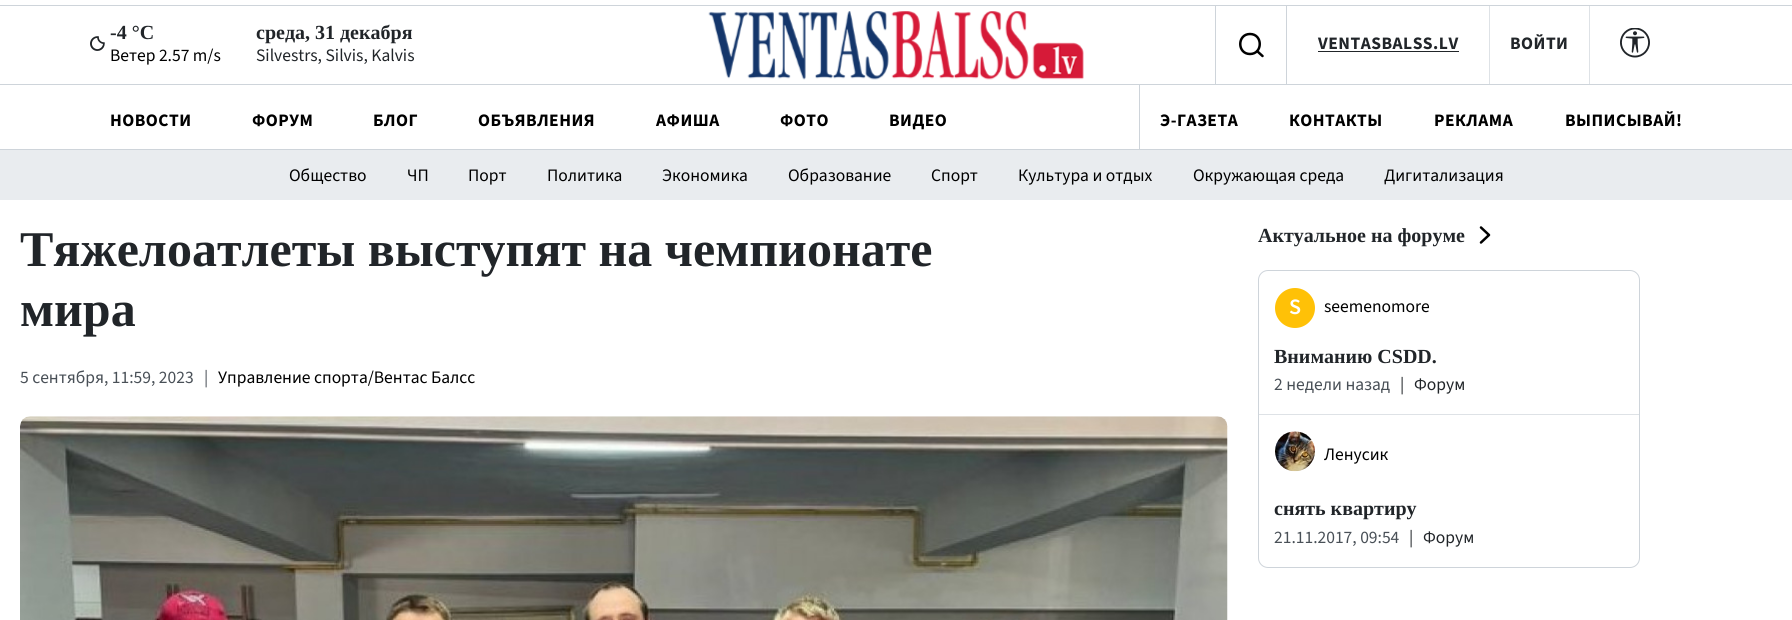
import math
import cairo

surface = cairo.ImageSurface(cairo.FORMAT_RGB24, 1792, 620)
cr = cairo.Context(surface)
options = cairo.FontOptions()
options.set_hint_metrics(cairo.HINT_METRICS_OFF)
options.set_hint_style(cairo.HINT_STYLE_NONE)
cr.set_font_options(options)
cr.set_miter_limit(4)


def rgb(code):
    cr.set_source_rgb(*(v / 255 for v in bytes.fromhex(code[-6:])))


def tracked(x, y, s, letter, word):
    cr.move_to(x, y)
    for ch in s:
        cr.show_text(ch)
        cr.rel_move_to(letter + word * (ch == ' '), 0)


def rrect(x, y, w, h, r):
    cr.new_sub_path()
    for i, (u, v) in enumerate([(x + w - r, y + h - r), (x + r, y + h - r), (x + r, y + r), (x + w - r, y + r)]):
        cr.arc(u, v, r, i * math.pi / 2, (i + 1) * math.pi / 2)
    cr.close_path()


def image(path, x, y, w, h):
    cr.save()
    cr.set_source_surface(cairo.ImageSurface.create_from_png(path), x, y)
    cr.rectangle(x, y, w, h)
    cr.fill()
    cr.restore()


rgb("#ffffff")
cr.paint()
rgb("#ced4da")
cr.rectangle(0, 5, 1792, 1)
cr.fill()
cr.rectangle(0, 84, 1792, 1)
cr.fill()
image("img/1.png", 708, 11, 376, 69)
image("img/2.png", 90, 36, 15, 15)
cr.rectangle(1286, 6, 1, 78)
cr.fill()
cr.rectangle(1215, 6, 1, 78)
cr.fill()
cr.new_path()
cr.move_to(1250, 54)
cr.curve_to(1263, 54, 1263, 34, 1250, 34)
cr.curve_to(1237, 34, 1237, 54, 1250, 54)
cr.close_path()
cr.move_to(1262.5, 56)
cr.line_to(1257, 51)
rgb("#000000")
cr.set_line_width(2.5)
cr.set_line_cap(cairo.LINE_CAP_ROUND)
cr.set_line_join(cairo.LINE_JOIN_ROUND)
cr.stroke()
for x, y, w, h, color in [
    (1489, 6, 1, 78, "#dee2e6"),
    (1318, 51, 141, 1, "#212529"),
    (1589, 6, 1, 78, "#dee2e6"),
]:
    rgb(color)
    cr.rectangle(x, y, w, h)
    cr.fill()
image("img/3.png", 1620, 28, 30, 30)
for x, y, w, h, color in [
    (0, 149, 1792, 1, "#ced4da"),
    (1139, 85, 1, 64, "#ced4da"),
    (0, 150, 1792, 50, "#e9ecef"),
]:
    rgb(color)
    cr.rectangle(x, y, w, h)
    cr.fill()
image("img/4.png", 20, 416, 1208, 204)
cr.new_path()
cr.move_to(1481, 242.5)
cr.line_to(1489, 235)
cr.line_to(1481, 227.5)
rgb("#000000")
cr.stroke()
rrect(1258.5, 270.5, 381, 297, 9.5)
rgb("#ced4da")
cr.set_line_width(1)
cr.set_line_cap(cairo.LINE_CAP_BUTT)
cr.set_line_join(cairo.LINE_JOIN_MITER)
cr.stroke()
rgb("#dee2e6")
cr.rectangle(1259, 414, 380, 1)
cr.fill()
rgb("#ffc107")
cr.arc(1295, 308, 20, 0, 2 * math.pi)
cr.fill()
image("img/5.png", 1275, 431, 40, 41)
cr.select_font_face("Liberation Serif", cairo.FONT_SLANT_NORMAL, cairo.FONT_WEIGHT_BOLD)
cr.set_font_size(20)
rgb("#212529")
cr.move_to(110, 39)
cr.show_text("-4 °C")
cr.select_font_face("Source Sans 3")
cr.set_font_size(17.5)
rgb("#000000")
cr.move_to(110, 61)
cr.show_text("Ветер 2.57 m/s")
cr.select_font_face("Liberation Serif", cairo.FONT_SLANT_NORMAL, cairo.FONT_WEIGHT_BOLD)
cr.set_font_size(20)
rgb("#212529")
cr.move_to(256, 39)
cr.show_text("среда, 31 декабря")
cr.select_font_face("Source Sans 3")
cr.set_font_size(17.5)
cr.move_to(256, 61)
cr.show_text("Silvestrs, Silvis, Kalvis")
cr.select_font_face("Source Sans 3", cairo.FONT_SLANT_NORMAL, cairo.FONT_WEIGHT_BOLD)
tracked(1318, 49, "VENTASBALSS.LV", 0.5, 0)
tracked(1510, 49, "ВОЙТИ", 0.5, 0)
rgb("#000000")
for x, y, s in [
    (110, 126, "НОВОСТИ"),
    (252, 126, "ФОРУМ"),
    (373, 126, "БЛОГ"),
    (478, 126, "ОБЪЯВЛЕНИЯ"),
    (656, 126, "АФИША"),
    (780, 126, "ФОТО"),
    (889, 126, "ВИДЕО"),
    (1160, 126, "Э-ГАЗЕТА"),
    (1289, 126, "КОНТАКТЫ"),
    (1434, 126, "РЕКЛАМА"),
    (1565, 126, "ВЫПИСЫВАЙ!"),
]:
    tracked(x, y, s, 0.5, 0)
cr.select_font_face("Source Sans 3")
for x, y, s in [
    (289, 181, "Общество"),
    (407, 181, "ЧП"),
    (468, 181, "Порт"),
    (547, 181, "Политика"),
    (662, 181, "Экономика"),
    (788, 181, "Образование"),
    (931, 181, "Спорт"),
    (1018, 181, "Культура и отдых"),
    (1193, 181, "Окружающая среда"),
    (1384, 181, "Дигитализация"),
]:
    cr.move_to(x, y)
    cr.show_text(s)
cr.select_font_face("Liberation Serif", cairo.FONT_SLANT_NORMAL, cairo.FONT_WEIGHT_BOLD)
cr.set_font_size(50)
rgb("#212529")
cr.move_to(20, 266)
cr.show_text("Тяжелоатлеты выступят на чемпионате")
cr.move_to(20, 326)
cr.show_text("мира")
cr.select_font_face("Source Sans 3")
cr.set_font_size(17.5)
rgb("#495057")
cr.move_to(20, 383)
cr.show_text("5 сентября, 11:59, 2023")
cr.move_to(204, 383)
cr.show_text("|")
rgb("#000000")
cr.move_to(218, 383)
cr.show_text("Управление спорта/Вентас Балсс")
cr.select_font_face("Liberation Serif", cairo.FONT_SLANT_NORMAL, cairo.FONT_WEIGHT_BOLD)
cr.set_font_size(20)
rgb("#212529")
cr.move_to(1258, 242)
cr.show_text("Актуальное на форуме")
cr.select_font_face("Source Sans 3 SemiBold")
cr.set_font_size(22)
rgb("#ffffff")
cr.move_to(1289, 314)
cr.show_text("S")
cr.select_font_face("Source Sans 3")
cr.set_font_size(17.5)
rgb("#000000")
cr.move_to(1324, 312)
cr.show_text("seemenomore")
cr.select_font_face("Liberation Serif", cairo.FONT_SLANT_NORMAL, cairo.FONT_WEIGHT_BOLD)
cr.set_font_size(20)
rgb("#212529")
cr.move_to(1274, 363)
cr.show_text("Вниманию CSDD.")
cr.select_font_face("Source Sans 3")
cr.set_font_size(17.5)
rgb("#495057")
cr.move_to(1274, 390)
cr.show_text("2 недели назад")
rgb("#212529")
cr.move_to(1400, 390)
cr.show_text("|")
cr.move_to(1414, 390)
cr.show_text("Форум")
rgb("#000000")
cr.move_to(1324, 460)
cr.show_text("Ленусик")
cr.select_font_face("Liberation Serif", cairo.FONT_SLANT_NORMAL, cairo.FONT_WEIGHT_BOLD)
cr.set_font_size(20)
rgb("#212529")
cr.move_to(1274, 515)
cr.show_text("снять квартиру")
cr.select_font_face("Source Sans 3")
cr.set_font_size(17.5)
rgb("#495057")
cr.move_to(1274, 543)
cr.show_text("21.11.2017, 09:54")
rgb("#212529")
cr.move_to(1409, 543)
cr.show_text("|")
cr.move_to(1423, 543)
cr.show_text("Форум")
surface.write_to_png("page.png")
